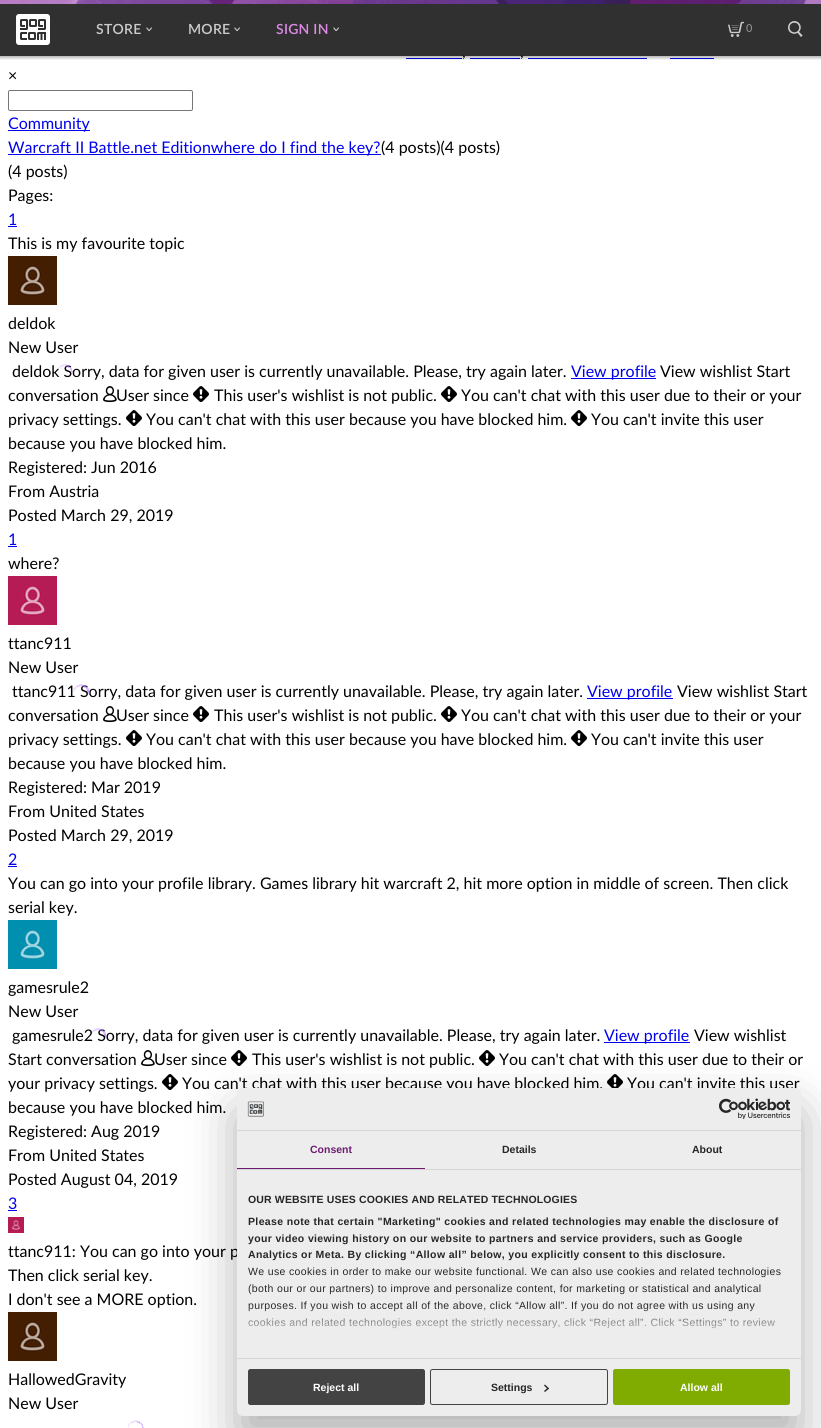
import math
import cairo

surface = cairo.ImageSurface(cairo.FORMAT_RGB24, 821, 1428)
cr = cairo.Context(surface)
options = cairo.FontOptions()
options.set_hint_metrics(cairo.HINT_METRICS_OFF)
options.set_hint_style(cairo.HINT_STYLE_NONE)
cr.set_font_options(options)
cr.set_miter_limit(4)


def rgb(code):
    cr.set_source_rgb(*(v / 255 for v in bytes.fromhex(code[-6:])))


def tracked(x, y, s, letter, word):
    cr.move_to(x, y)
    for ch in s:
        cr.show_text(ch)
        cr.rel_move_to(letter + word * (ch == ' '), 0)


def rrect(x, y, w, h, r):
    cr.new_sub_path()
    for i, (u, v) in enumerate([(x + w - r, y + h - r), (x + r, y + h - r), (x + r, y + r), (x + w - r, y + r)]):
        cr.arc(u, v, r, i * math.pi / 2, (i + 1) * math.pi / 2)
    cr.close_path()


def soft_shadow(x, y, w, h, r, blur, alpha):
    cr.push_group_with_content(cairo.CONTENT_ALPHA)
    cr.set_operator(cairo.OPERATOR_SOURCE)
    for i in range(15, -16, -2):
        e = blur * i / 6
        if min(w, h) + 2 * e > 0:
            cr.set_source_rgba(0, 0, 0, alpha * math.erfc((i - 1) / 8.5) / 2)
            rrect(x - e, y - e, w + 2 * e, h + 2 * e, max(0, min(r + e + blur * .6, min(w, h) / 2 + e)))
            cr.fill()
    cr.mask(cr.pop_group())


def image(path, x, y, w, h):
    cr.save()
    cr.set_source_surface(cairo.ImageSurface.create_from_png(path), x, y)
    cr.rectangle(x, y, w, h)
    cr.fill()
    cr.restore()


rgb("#ffffff")
cr.paint()
for x, y, w, h, color in [
    (406, 58, 56, 1, "#0000ee"),
    (470, 58, 50, 1, "#0000ee"),
    (528, 58, 119, 1, "#0000ee"),
    (670, 58, 44, 1, "#0000ee"),
]:
    rgb(color)
    cr.rectangle(x, y, w, h)
    cr.fill()
cr.save()
cr.rectangle(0, 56, 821, 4)
cr.clip()
rgb("#000000")
soft_shadow(-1, 0, 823, 58, 0, 1.5, 0.3)
cr.restore()
image("img/1.png", 0, 0, 821, 4)
rrect(8.5, 90.5, 184, 20, 1.5)
rgb("#767676")
cr.set_line_width(1)
cr.stroke()
for x, y, w, h, color in [
    (8, 130, 82, 1, "#0000ee"),
    (8, 154, 373, 1, "#0000ee"),
    (8, 226, 9, 1, "#0000ee"),
]:
    rgb(color)
    cr.rectangle(x, y, w, h)
    cr.fill()
image("img/8.png", 8, 256, 49, 49)
cr.set_source_rgba(0.702, 0.439, 1, 0.03)
cr.rectangle(57, 370, 1, 2)
cr.fill()
cr.set_source_rgba(0.702, 0.439, 1, 0.05)
cr.rectangle(57, 370, 1, 2)
cr.fill()
cr.set_source_rgba(0.702, 0.439, 1, 0.07)
cr.rectangle(57, 369, 1, 2)
cr.fill()
cr.set_source_rgba(0.702, 0.439, 1, 0.09)
cr.rectangle(57, 368, 1, 2)
cr.fill()
cr.set_source_rgba(0.702, 0.439, 1, 0.1)
cr.rectangle(58, 368, 1, 2)
cr.fill()
cr.set_source_rgba(0.702, 0.439, 1, 0.12)
cr.rectangle(58, 367, 1, 2)
cr.fill()
rgb("#0000ee")
cr.rectangle(571, 378, 85, 1)
cr.fill()
image("img/9.png", 441, 386, 16, 16)
image("img/10.png", 103, 386, 14, 17)
image("img/9.png", 193, 386, 16, 16)
image("img/9.png", 571, 410, 16, 16)
image("img/9.png", 126, 410, 16, 16)
cr.rectangle(8, 546, 9, 1)
cr.fill()
image("img/11.png", 8, 576, 49, 49)
cr.rectangle(587, 698, 86, 1)
cr.fill()
image("img/9.png", 441, 706, 16, 16)
image("img/10.png", 103, 706, 14, 17)
image("img/9.png", 193, 706, 16, 16)
image("img/9.png", 571, 730, 16, 16)
image("img/9.png", 126, 730, 16, 16)
cr.rectangle(8, 866, 9, 1)
cr.fill()
image("img/12.png", 8, 920, 49, 49)
cr.set_source_rgba(0.702, 0.439, 1, 0.03)
cr.rectangle(90, 1034, 2, 2)
cr.fill()
cr.set_source_rgba(0.702, 0.439, 1, 0.05)
cr.rectangle(90, 1034, 2, 2)
cr.fill()
cr.set_source_rgba(0.702, 0.439, 1, 0.07)
cr.rectangle(90, 1033, 2, 2)
cr.fill()
cr.set_source_rgba(0.702, 0.439, 1, 0.09)
cr.rectangle(90, 1032, 2, 2)
cr.fill()
cr.set_source_rgba(0.702, 0.439, 1, 0.1)
cr.rectangle(91, 1032, 2, 2)
cr.fill()
cr.set_source_rgba(0.702, 0.439, 1, 0.12)
cr.rectangle(91, 1031, 2, 2)
cr.fill()
rgb("#0000ee")
cr.rectangle(604, 1042, 86, 1)
cr.fill()
image("img/9.png", 479, 1050, 16, 16)
image("img/10.png", 141, 1050, 14, 17)
image("img/9.png", 231, 1050, 16, 16)
image("img/13.png", 607, 1074, 16, 14)
image("img/9.png", 162, 1074, 16, 16)
cr.rectangle(8, 1210, 9, 1)
cr.fill()
image("img/14.png", 8, 1217, 16, 16)
image("img/8.png", 8, 1312, 49, 49)
cr.set_source_rgba(0.702, 0.439, 1, 0.03)
cr.rectangle(128, 1426, 1, 2)
cr.fill()
cr.set_source_rgba(0.702, 0.439, 1, 0.05)
cr.rectangle(128, 1426, 1, 2)
cr.fill()
cr.set_source_rgba(0.702, 0.439, 1, 0.07)
cr.rectangle(128, 1425, 1, 2)
cr.fill()
cr.set_source_rgba(0.702, 0.439, 1, 0.09)
cr.rectangle(128, 1424, 1, 2)
cr.fill()
cr.set_source_rgba(0.702, 0.439, 1, 0.1)
cr.rectangle(129, 1424, 1, 2)
cr.fill()
cr.set_source_rgba(0.702, 0.439, 1, 0.12)
cr.rectangle(129, 1423, 1, 2)
cr.fill()
rgb("#f5ecff")
rrect(130, 1422, 1, 2, 0.5)
cr.fill()
rgb("#f4eaff")
rrect(131, 1422, 1, 2, 0.5)
cr.fill()
cr.set_source_rgba(0.851, 0.722, 1, 0.33)
cr.rectangle(131, 1421, 1, 2)
cr.fill()
rgb("#f1e5ff")
rrect(132, 1421, 1, 2, 0.5)
cr.fill()
rgb("#e7d3ff")
rrect(133, 1421, 1, 2, 0.5)
cr.fill()
rgb("#eddeff")
rrect(134, 1420, 1, 2, 0.5)
cr.fill()
rgb("#ecdcff")
rrect(135, 1420, 1, 2, 0.5)
cr.fill()
rgb("#ebd9ff")
rrect(136, 1420, 1, 2, 0.5)
cr.fill()
cr.set_source_rgba(0.702, 0.439, 1, 0.28)
cr.rectangle(137, 1421, 1, 2)
cr.fill()
cr.set_source_rgba(0.702, 0.439, 1, 0.3)
cr.rectangle(137, 1421, 1, 2)
cr.fill()
cr.set_source_rgba(0.702, 0.439, 1, 0.32)
cr.rectangle(138, 1421, 1, 2)
cr.fill()
cr.set_source_rgba(0.702, 0.439, 1, 0.33)
cr.rectangle(139, 1421, 1, 2)
cr.fill()
cr.set_source_rgba(0.702, 0.439, 1, 0.35)
cr.rectangle(139, 1422, 1, 2)
cr.fill()
cr.set_source_rgba(0.702, 0.439, 1, 0.37)
cr.rectangle(140, 1422, 1, 2)
cr.fill()
cr.set_source_rgba(0.702, 0.439, 1, 0.39)
cr.rectangle(141, 1423, 1, 2)
cr.fill()
cr.set_source_rgba(0.851, 0.722, 1, 0.8)
rrect(141, 1424, 1, 2, 0.5)
cr.fill()
rgb("#dfc4ff")
rrect(142, 1424, 1, 2, 0.5)
cr.fill()
cr.set_source_rgba(0.851, 0.722, 1, 0.87)
rrect(142, 1425, 1, 2, 0.5)
cr.fill()
cr.set_source_rgba(0.851, 0.722, 1, 0.9)
rrect(142, 1426, 1, 2, 0.5)
cr.fill()
cr.set_source_rgba(0.851, 0.722, 1, 0.93)
rrect(142, 1426, 1, 2, 0.5)
cr.fill()
rgb("#dabaff")
rrect(143, 1427, 1, 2, 0.5)
cr.fill()
rgb("#000000")
soft_shadow(237, 1110, 564, 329, 6, 24, 0.3)
cr.select_font_face("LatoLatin")
cr.set_font_size(16)
rgb("#000000")
cr.move_to(462, 57)
cr.show_text(",")
cr.move_to(520, 57)
cr.show_text(",")
cr.set_source_rgba(0.102, 0.102, 0.102, 0.9)
cr.rectangle(0, 4, 821, 52)
cr.fill()
cr.select_font_face("LatoLatin SemiBold")
cr.set_font_size(11)
rgb("#898989")
tracked(746, 32, "0", 0.25, 0)
image("img/6.png", 728, 21, 16, 16)
image("img/2.png", 16, 14, 34, 31)
image("img/7.png", 788, 21, 15, 16)
image("img/5.png", 333, 27, 6, 4)
cr.set_font_size(14)
rgb("#de8ae5")
tracked(276, 34, "SIGN IN", 0.25, 0)
image("img/4.png", 234, 27, 6, 4)
rgb("#cccccc")
tracked(188, 34, "MORE", 0.25, 0)
image("img/3.png", 146, 27, 6, 4)
tracked(96, 34, "STORE", 0.25, 0)
cr.select_font_face("LatoLatin")
cr.set_font_size(16)
rgb("#000000")
cr.move_to(8, 81)
cr.show_text("×")
rgb("#0000ee")
cr.move_to(8, 129)
cr.show_text("Community")
cr.move_to(8, 153)
cr.show_text("Warcraft II Battle.net Editionwhere do I find the key?")
rgb("#000000")
for x, y, s in [
    (381, 153, "(4 posts)(4 posts)"),
    (8, 177, "(4 posts)"),
    (8, 201, "Pages:"),
]:
    cr.move_to(x, y)
    cr.show_text(s)
rgb("#0000ee")
cr.move_to(8, 225)
cr.show_text("1")
rgb("#000000")
for x, y, s in [
    (8, 249, "This is my favourite topic"),
    (8, 329, "deldok"),
    (8, 353, "New User"),
    (12, 377, "deldok Sorry, data for given user is currently unavailable. Please, try again later."),
]:
    cr.move_to(x, y)
    cr.show_text(s)
cr.set_source_rgba(0.702, 0.439, 1, 0.48)
rrect(72, 371, 1, 2, 0.5)
cr.fill()
rgb("#d6b5fc")
rrect(72, 372, 1, 2, 0.5)
cr.fill()
rgb("#dfc4ff")
rrect(71, 368, 1, 2, 0.5)
cr.fill()
cr.set_source_rgba(0.851, 0.722, 1, 0.87)
rrect(71, 369, 1, 2, 0.5)
cr.fill()
cr.set_source_rgba(0.851, 0.722, 1, 0.9)
rrect(71, 370, 1, 2, 0.5)
cr.fill()
cr.set_source_rgba(0.851, 0.722, 1, 0.93)
rrect(71, 370, 1, 2, 0.5)
cr.fill()
cr.set_source_rgba(0.702, 0.439, 1, 0.39)
cr.rectangle(70, 367, 1, 2)
cr.fill()
cr.set_source_rgba(0.851, 0.722, 1, 0.8)
rrect(70, 368, 1, 2, 0.5)
cr.fill()
cr.set_source_rgba(0.702, 0.439, 1, 0.37)
cr.rectangle(69, 366, 1, 2)
cr.fill()
cr.set_source_rgba(0.702, 0.439, 1, 0.33)
cr.rectangle(68, 365, 1, 2)
cr.fill()
cr.set_source_rgba(0.702, 0.439, 1, 0.35)
cr.rectangle(68, 366, 1, 2)
cr.fill()
cr.set_source_rgba(0.702, 0.439, 1, 0.32)
cr.rectangle(67, 365, 1, 2)
cr.fill()
cr.set_source_rgba(0.702, 0.439, 1, 0.28)
cr.rectangle(66, 365, 1, 2)
cr.fill()
cr.set_source_rgba(0.702, 0.439, 1, 0.3)
cr.rectangle(66, 365, 1, 2)
cr.fill()
rgb("#ebd9ff")
rrect(65, 364, 1, 2, 0.5)
cr.fill()
rgb("#ecdcff")
rrect(64, 364, 1, 2, 0.5)
cr.fill()
rgb("#eddeff")
rrect(63, 364, 1, 2, 0.5)
cr.fill()
rgb("#e7d3ff")
rrect(62, 365, 1, 2, 0.5)
cr.fill()
rgb("#f1e5ff")
rrect(61, 365, 1, 2, 0.5)
cr.fill()
rgb("#f4eaff")
rrect(60, 366, 1, 2, 0.5)
cr.fill()
cr.set_source_rgba(0.851, 0.722, 1, 0.33)
cr.rectangle(60, 365, 1, 2)
cr.fill()
rgb("#f5ecff")
rrect(59, 366, 1, 2, 0.5)
cr.fill()
rgb("#0000ee")
cr.move_to(571, 377)
cr.show_text("View profile")
rgb("#000000")
for x, y, s in [
    (660, 377, "View wishlist Start"),
    (8, 401, "conversation"),
    (461, 401, "You can't chat with this user due to their or your"),
    (8, 425, "privacy settings."),
    (116, 401, "User since"),
    (214, 401, "This user's wishlist is not public."),
    (591, 425, "You can't invite this user"),
    (8, 449, "because you have blocked him."),
    (146, 425, "You can't chat with this user because you have blocked him."),
    (8, 473, "Registered: Jun 2016"),
    (8, 497, "From Austria"),
    (8, 521, "Posted March 29, 2019"),
]:
    cr.move_to(x, y)
    cr.show_text(s)
rgb("#0000ee")
cr.move_to(8, 545)
cr.show_text("1")
rgb("#000000")
for x, y, s in [
    (8, 569, "where?"),
    (8, 649, "ttanc911"),
    (8, 673, "New User"),
    (12, 697, "ttanc911 Sorry, data for given user is currently unavailable. Please, try again later."),
]:
    cr.move_to(x, y)
    cr.show_text(s)
rgb("#f9f4ff")
cr.new_path()
cr.arc(74, 691, 1, 0, 2 * math.pi)
cr.fill()
cr.set_source_rgba(0.851, 0.722, 1, 0.13)
cr.rectangle(73, 689, 2, 2)
cr.fill()
cr.set_source_rgba(0.851, 0.722, 1, 0.17)
cr.rectangle(73, 688, 2, 2)
cr.fill()
cr.set_source_rgba(0.851, 0.722, 1, 0.2)
cr.rectangle(74, 688, 2, 2)
cr.fill()
cr.set_source_rgba(0.851, 0.722, 1, 0.23)
cr.rectangle(74, 687, 2, 2)
cr.fill()
cr.set_source_rgba(0.851, 0.722, 1, 0.27)
cr.arc(76, 687, 1, 0, 2 * math.pi)
cr.fill()
cr.set_source_rgba(0.851, 0.722, 1, 0.3)
cr.arc(77, 687, 1, 0, 2 * math.pi)
cr.fill()
cr.set_source_rgba(0.851, 0.722, 1, 0.33)
cr.arc(77, 686, 1, 0, 2 * math.pi)
cr.fill()
cr.set_source_rgba(0.851, 0.722, 1, 0.37)
cr.arc(78, 686, 1, 0, 2 * math.pi)
cr.fill()
cr.set_source_rgba(0.851, 0.722, 1, 0.4)
cr.arc(79, 686, 1, 0, 2 * math.pi)
cr.fill()
cr.set_source_rgba(0.851, 0.722, 1, 0.43)
cr.arc(79, 686, 1, 0, 2 * math.pi)
cr.fill()
cr.set_source_rgba(0.851, 0.722, 1, 0.47)
cr.arc(80, 685, 1, 0, 2 * math.pi)
cr.fill()
cr.set_source_rgba(0.851, 0.722, 1, 0.5)
cr.arc(81, 685, 1, 0, 2 * math.pi)
cr.fill()
cr.set_source_rgba(0.702, 0.439, 1, 0.27)
cr.arc(82, 685, 1, 0, 2 * math.pi)
cr.fill()
cr.set_source_rgba(0.702, 0.439, 1, 0.28)
cr.arc(83, 686, 1, 0, 2 * math.pi)
cr.fill()
cr.set_source_rgba(0.702, 0.439, 1, 0.3)
cr.arc(83, 686, 1, 0, 2 * math.pi)
cr.fill()
cr.set_source_rgba(0.702, 0.439, 1, 0.32)
cr.arc(84, 686, 1, 0, 2 * math.pi)
cr.fill()
cr.set_source_rgba(0.702, 0.439, 1, 0.33)
cr.arc(85, 686, 1, 0, 2 * math.pi)
cr.fill()
cr.set_source_rgba(0.702, 0.439, 1, 0.35)
cr.arc(85, 687, 1, 0, 2 * math.pi)
cr.fill()
cr.set_source_rgba(0.702, 0.439, 1, 0.37)
cr.arc(86, 687, 1, 0, 2 * math.pi)
cr.fill()
cr.set_source_rgba(0.702, 0.439, 1, 0.39)
cr.arc(87, 688, 1, 0, 2 * math.pi)
cr.fill()
cr.set_source_rgba(0.851, 0.722, 1, 0.8)
cr.arc(87, 689, 1, 0, 2 * math.pi)
cr.fill()
cr.set_source_rgba(0.851, 0.722, 1, 0.83)
cr.arc(88, 689, 1, 0, 2 * math.pi)
cr.fill()
cr.set_source_rgba(0.851, 0.722, 1, 0.87)
cr.arc(88, 690, 1, 0, 2 * math.pi)
cr.fill()
cr.set_source_rgba(0.702, 0.439, 1, 0.45)
cr.arc(88, 691, 1, 0, 2 * math.pi)
cr.fill()
cr.set_source_rgba(0.702, 0.439, 1, 0.47)
cr.arc(88, 691, 1, 0, 2 * math.pi)
cr.fill()
cr.set_source_rgba(0.702, 0.439, 1, 0.48)
cr.arc(89, 692, 1, 0, 2 * math.pi)
cr.fill()
cr.set_source_rgba(0.702, 0.439, 1, 0.5)
cr.arc(89, 693, 1, 0, 2 * math.pi)
cr.fill()
rgb("#0000ee")
cr.move_to(587, 697)
cr.show_text("View profile")
rgb("#000000")
for x, y, s in [
    (677, 697, "View wishlist Start"),
    (8, 721, "conversation"),
    (461, 721, "You can't chat with this user due to their or your"),
    (8, 745, "privacy settings."),
    (116, 721, "User since"),
    (214, 721, "This user's wishlist is not public."),
    (591, 745, "You can't invite this user"),
    (8, 769, "because you have blocked him."),
    (146, 745, "You can't chat with this user because you have blocked him."),
    (8, 793, "Registered: Mar 2019"),
    (8, 817, "From United States"),
    (8, 841, "Posted March 29, 2019"),
]:
    cr.move_to(x, y)
    cr.show_text(s)
rgb("#0000ee")
cr.move_to(8, 865)
cr.show_text("2")
rgb("#000000")
for x, y, s in [
    (8, 889, "You can go into your profile library. Games library hit warcraft 2, hit more option in middle of screen. Then click"),
    (8, 913, "serial key."),
    (8, 993, "gamesrule2"),
    (8, 1017, "New User"),
    (12, 1041, "gamesrule2 Sorry, data for given user is currently unavailable. Please, try again later."),
]:
    cr.move_to(x, y)
    cr.show_text(s)
cr.set_source_rgba(0.851, 0.722, 1, 0.27)
cr.new_path()
cr.arc(93, 1031, 1, 0, 2 * math.pi)
cr.fill()
cr.set_source_rgba(0.851, 0.722, 1, 0.3)
cr.arc(94, 1031, 1, 0, 2 * math.pi)
cr.fill()
cr.set_source_rgba(0.851, 0.722, 1, 0.33)
cr.arc(94, 1030, 1, 0, 2 * math.pi)
cr.fill()
cr.set_source_rgba(0.851, 0.722, 1, 0.37)
cr.arc(95, 1030, 1, 0, 2 * math.pi)
cr.fill()
cr.set_source_rgba(0.851, 0.722, 1, 0.4)
cr.arc(96, 1030, 1, 0, 2 * math.pi)
cr.fill()
cr.set_source_rgba(0.851, 0.722, 1, 0.43)
cr.arc(96, 1030, 1, 0, 2 * math.pi)
cr.fill()
cr.set_source_rgba(0.851, 0.722, 1, 0.47)
cr.arc(97, 1029, 1, 0, 2 * math.pi)
cr.fill()
cr.set_source_rgba(0.851, 0.722, 1, 0.5)
cr.arc(98, 1029, 1, 0, 2 * math.pi)
cr.fill()
cr.set_source_rgba(0.702, 0.439, 1, 0.27)
cr.arc(99, 1029, 1, 0, 2 * math.pi)
cr.fill()
cr.set_source_rgba(0.702, 0.439, 1, 0.28)
cr.arc(100, 1030, 1, 0, 2 * math.pi)
cr.fill()
cr.set_source_rgba(0.702, 0.439, 1, 0.3)
cr.arc(100, 1030, 1, 0, 2 * math.pi)
cr.fill()
cr.set_source_rgba(0.702, 0.439, 1, 0.32)
cr.arc(101, 1030, 1, 0, 2 * math.pi)
cr.fill()
cr.set_source_rgba(0.702, 0.439, 1, 0.33)
cr.arc(102, 1030, 1, 0, 2 * math.pi)
cr.fill()
cr.set_source_rgba(0.702, 0.439, 1, 0.35)
cr.arc(102, 1031, 1, 0, 2 * math.pi)
cr.fill()
cr.set_source_rgba(0.702, 0.439, 1, 0.37)
cr.arc(103, 1031, 1, 0, 2 * math.pi)
cr.fill()
cr.set_source_rgba(0.702, 0.439, 1, 0.39)
cr.arc(104, 1032, 1, 0, 2 * math.pi)
cr.fill()
cr.set_source_rgba(0.851, 0.722, 1, 0.8)
cr.arc(104, 1033, 1, 0, 2 * math.pi)
cr.fill()
cr.set_source_rgba(0.851, 0.722, 1, 0.83)
cr.arc(105, 1033, 1, 0, 2 * math.pi)
cr.fill()
cr.set_source_rgba(0.851, 0.722, 1, 0.87)
cr.arc(105, 1034, 1, 0, 2 * math.pi)
cr.fill()
cr.set_source_rgba(0.702, 0.439, 1, 0.45)
cr.arc(105, 1035, 1, 0, 2 * math.pi)
cr.fill()
cr.set_source_rgba(0.702, 0.439, 1, 0.47)
cr.arc(105, 1035, 1, 0, 2 * math.pi)
cr.fill()
cr.set_source_rgba(0.702, 0.439, 1, 0.48)
cr.arc(106, 1036, 1, 0, 2 * math.pi)
cr.fill()
cr.set_source_rgba(0.702, 0.439, 1, 0.5)
cr.arc(106, 1037, 1, 0, 2 * math.pi)
cr.fill()
rgb("#0000ee")
cr.move_to(604, 1041)
cr.show_text("View profile")
rgb("#000000")
for x, y, s in [
    (694, 1041, "View wishlist"),
    (8, 1065, "Start conversation"),
    (499, 1065, "You can't chat with this user due to their or"),
    (8, 1089, "your privacy settings."),
    (154, 1065, "User since"),
    (252, 1065, "This user's wishlist is not public."),
    (627, 1089, "You can't invite this user"),
    (8, 1113, "because you have blocked him."),
    (182, 1089, "You can't chat with this user because you have blocked him."),
    (8, 1137, "Registered: Aug 2019"),
    (8, 1161, "From United States"),
    (8, 1185, "Posted August 04, 2019"),
]:
    cr.move_to(x, y)
    cr.show_text(s)
rgb("#0000ee")
cr.move_to(8, 1209)
cr.show_text("3")
rgb("#000000")
for x, y, s in [
    (8, 1257, "ttanc911: You can go into your p"),
    (8, 1281, "Then click serial key."),
    (8, 1305, "I don't see a MORE option."),
    (8, 1385, "HallowedGravity"),
    (8, 1409, "New User"),
]:
    cr.move_to(x, y)
    cr.show_text(s)
rgb("#ededed")
rrect(237, 1088, 564, 328, 6)
cr.fill()
rgb("#d6d6d6")
cr.rectangle(237, 1130, 564, 1)
cr.fill()
image("img/15.png", 247, 1101, 17, 16)
image("img/16.png", 719, 1098, 71, 21)
cr.rectangle(237, 1169, 564, 1)
cr.fill()
rgb("#6e1d72")
cr.rectangle(237, 1168, 188, 1)
cr.fill()
cr.select_font_face("Liberation Sans", cairo.FONT_SLANT_NORMAL, cairo.FONT_WEIGHT_BOLD)
cr.set_font_size(10.5)
cr.move_to(310, 1153)
cr.show_text("Consent")
rgb("#262626")
cr.move_to(502, 1153)
cr.show_text("Details")
cr.move_to(692, 1153)
cr.show_text("About")
rgb("#d6d6d6")
cr.rectangle(237, 1358, 564, 1)
cr.fill()
rgb("#262626")
tracked(248, 1203, "OUR WEBSITE USES COOKIES AND RELATED TECHNOLOGIES", 0.15, 0)
for x, y, s in [
    (248, 1225, "Please note that certain \"Marketing\" cookies and related technologies may enable the disclosure of"),
    (248, 1242, "your video viewing history on our website to partners and service providers, such as Google"),
    (248, 1258, "Analytics or Meta. By clicking “Allow all” below, you explicitly consent to this disclosure."),
]:
    tracked(x, y, s, 0.35, 0)
cr.select_font_face("Liberation Sans")
for x, y, s in [
    (248, 1275, "We use cookies in order to make our website functional. We can also use cookies and related technologies"),
    (248, 1292, "(both our or our partners) to improve and personalize content, for marketing or statistical and analytical"),
    (248, 1309, "purposes. If you wish to accept all of the above, click “Allow all”. If you do not agree with us using any"),
    (248, 1326, "cookies and related technologies except the strictly necessary, click “Reject all”. Click “Settings” to review"),
]:
    tracked(x, y, s, 0.35, 0)
gradient = cairo.LinearGradient(515, 1358, 515, 1306)
gradient.add_color_stop_rgba(0, 0.929, 0.929, 0.929, 1)
gradient.add_color_stop_rgba(0.5, 0.929, 0.929, 0.929, 0.8)
gradient.add_color_stop_rgba(1, 0.929, 0.929, 0.929, 0)
cr.set_source(gradient)
cr.rectangle(248, 1307, 527, 22)
cr.fill()
rgb("#434343")
rrect(248.5, 1369.5, 176, 35, 2)
cr.fill_preserve()
cr.stroke()
cr.select_font_face("Liberation Sans", cairo.FONT_SLANT_NORMAL, cairo.FONT_WEIGHT_BOLD)
rgb("#ffffff")
cr.move_to(313, 1391)
cr.show_text("Reject all")
rrect(430.5, 1369.5, 177, 35, 2)
rgb("#434343")
cr.stroke()
rgb("#262626")
cr.move_to(491, 1391)
cr.show_text("Settings")
cr.new_path()
cr.move_to(545, 1384.5)
cr.line_to(549, 1388.5)
cr.line_to(548, 1389.5)
cr.line_to(544, 1385.5)
cr.close_path()
cr.fill()
cr.new_path()
cr.move_to(548, 1387.5)
cr.line_to(549, 1388.5)
cr.line_to(545, 1392)
cr.line_to(544, 1391)
cr.close_path()
cr.fill()
rgb("#80ab00")
rrect(613.5, 1369.5, 176, 35, 2)
cr.fill_preserve()
cr.stroke()
rgb("#ffffff")
cr.move_to(680, 1391)
cr.show_text("Allow all")
surface.write_to_png("page.png")
